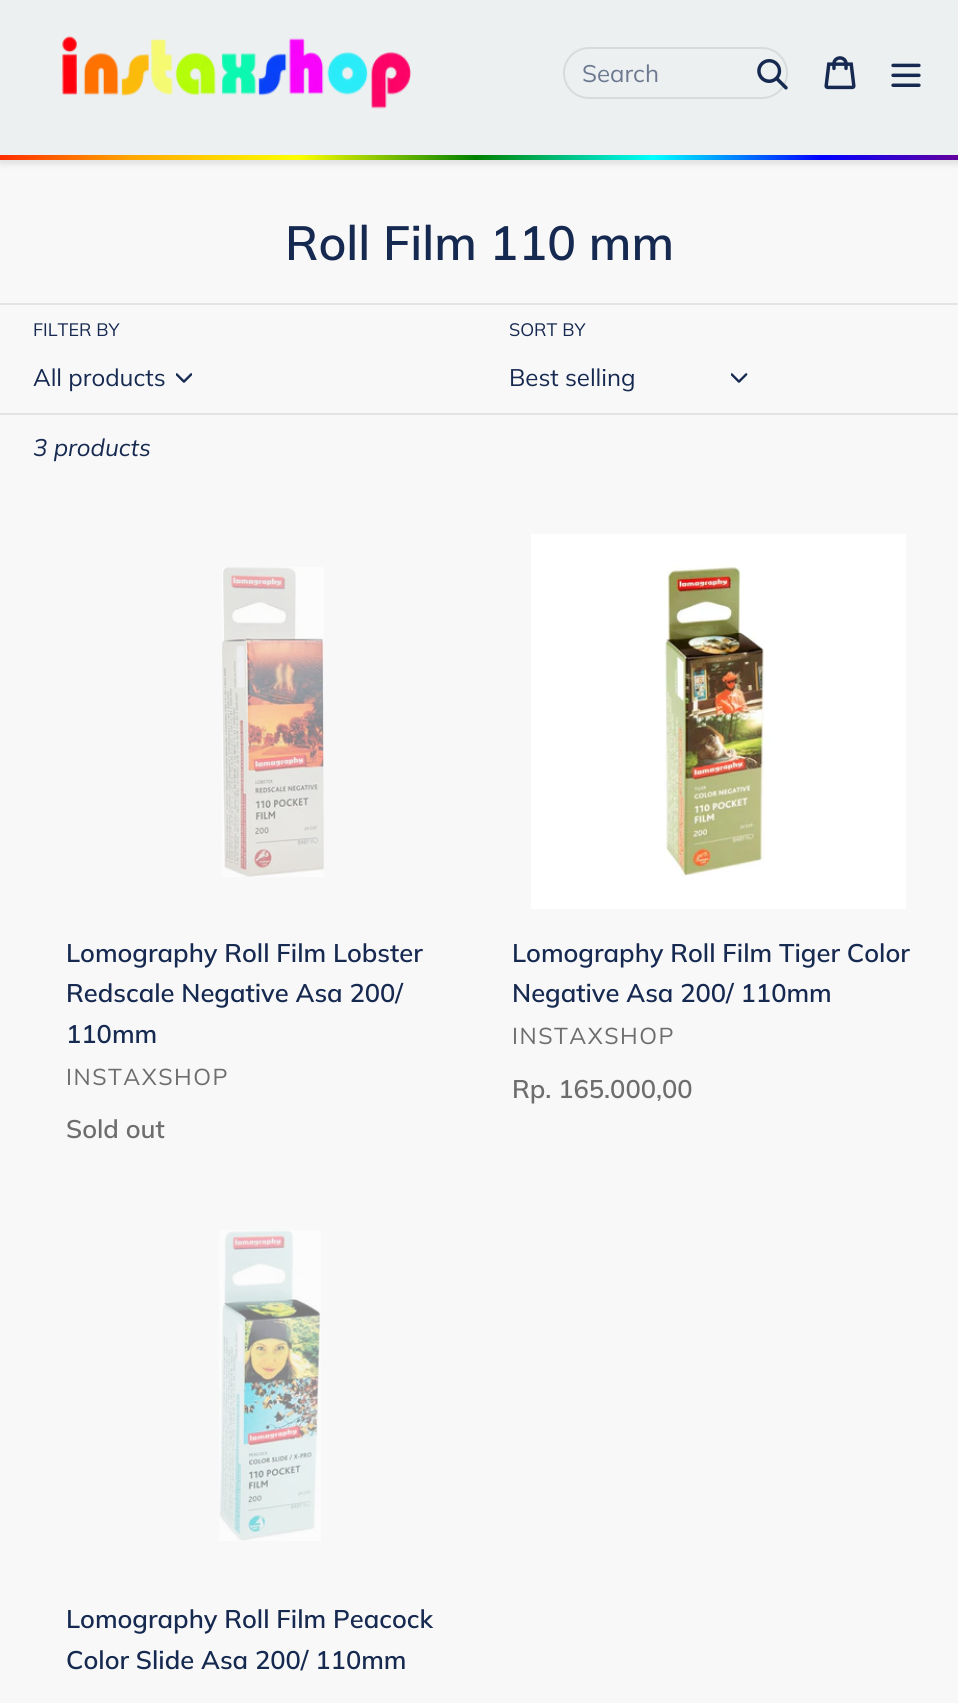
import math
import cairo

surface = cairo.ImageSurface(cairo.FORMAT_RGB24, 958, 1703)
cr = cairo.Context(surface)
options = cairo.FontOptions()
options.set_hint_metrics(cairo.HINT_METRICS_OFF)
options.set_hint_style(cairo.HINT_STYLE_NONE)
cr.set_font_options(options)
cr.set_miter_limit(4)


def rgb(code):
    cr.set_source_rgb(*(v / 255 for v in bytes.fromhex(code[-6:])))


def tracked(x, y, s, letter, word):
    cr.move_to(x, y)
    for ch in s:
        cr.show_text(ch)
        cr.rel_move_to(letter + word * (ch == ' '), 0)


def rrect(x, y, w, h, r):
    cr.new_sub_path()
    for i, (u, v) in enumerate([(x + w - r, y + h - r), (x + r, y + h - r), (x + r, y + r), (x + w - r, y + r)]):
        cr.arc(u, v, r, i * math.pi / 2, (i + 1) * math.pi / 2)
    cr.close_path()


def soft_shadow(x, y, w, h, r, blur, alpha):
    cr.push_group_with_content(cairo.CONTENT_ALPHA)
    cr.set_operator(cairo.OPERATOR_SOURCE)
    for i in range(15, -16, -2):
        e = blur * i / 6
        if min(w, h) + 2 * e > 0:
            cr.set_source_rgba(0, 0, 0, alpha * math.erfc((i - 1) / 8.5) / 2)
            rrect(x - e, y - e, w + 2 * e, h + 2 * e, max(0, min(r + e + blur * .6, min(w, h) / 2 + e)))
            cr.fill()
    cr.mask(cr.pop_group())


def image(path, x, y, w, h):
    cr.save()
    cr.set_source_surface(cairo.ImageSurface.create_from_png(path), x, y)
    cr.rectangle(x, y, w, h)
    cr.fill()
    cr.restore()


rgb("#f8f8f8")
cr.paint()
rgb("#000000")
soft_shadow(0, 3, 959, 161, 0, 3, 0.1)
rgb("#ecf0f1")
cr.rectangle(0, 0, 958, 155)
cr.fill()
rgb("#e4e4e4")
cr.rectangle(0, 160, 958, 1)
cr.fill()
image("img/1.png", 62, 36, 349, 73)
rrect(564, 48, 223, 50, 25)
rgb("#d9dbdb")
cr.stroke()
image("img/2.png", 757, 59, 31, 31)
image("img/3.png", 824, 56, 32, 34)
image("img/4.png", 891, 63, 30, 24)
gradient = cairo.LinearGradient(-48, 157, 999, 157)
gradient.add_color_stop_rgba(0, 1, 0, 0, 1)
gradient.add_color_stop_rgba(0.17, 1, 0.647, 0, 1)
gradient.add_color_stop_rgba(0.33, 1, 1, 0, 1)
gradient.add_color_stop_rgba(0.5, 0, 0.502, 0, 1)
gradient.add_color_stop_rgba(0.67, 0, 1, 1, 1)
gradient.add_color_stop_rgba(0.83, 0, 0, 1, 1)
gradient.add_color_stop_rgba(1, 0.502, 0, 0.502, 1)
cr.set_source(gradient)
cr.rectangle(0, 155, 958, 5)
cr.fill()
rgb("#e4e4e4")
cr.rectangle(0, 303, 958, 2)
cr.fill()
image("img/5.png", 176, 373, 16, 10)
image("img/6.png", 731, 373, 17, 10)
cr.rectangle(0, 413, 958, 2)
cr.fill()
image("img/7.png", 222, 567, 102, 310)
image("img/8.png", 531, 534, 375, 375)
image("img/9.png", 219, 1230, 102, 311)
cr.select_font_face("Muli")
cr.set_font_size(24)
rgb("#6c7990")
cr.move_to(582, 82)
cr.show_text("Search")
cr.select_font_face("Muli SemiBold")
cr.set_font_size(48)
rgb("#162950")
cr.move_to(285, 260)
cr.show_text("Roll Film 110 mm")
cr.select_font_face("Muli")
cr.set_font_size(18)
cr.move_to(33, 336)
cr.show_text("FILTER BY")
cr.set_font_size(24)
cr.move_to(33, 386)
cr.show_text("All products")
cr.set_font_size(18)
cr.move_to(509, 336)
cr.show_text("SORT BY")
cr.set_font_size(24)
cr.move_to(509, 386)
cr.show_text("Best selling")
cr.select_font_face("Muli", cairo.FONT_SLANT_ITALIC)
cr.move_to(33, 456)
cr.show_text("3 products")
cr.select_font_face("Muli SemiBold")
cr.set_font_size(25.5)
for x, y, s in [
    (66, 962, "Lomography Roll Film Lobster"),
    (66, 1002, "Redscale Negative Asa 200/"),
    (66, 1043, "110mm"),
]:
    cr.move_to(x, y)
    cr.show_text(s)
cr.select_font_face("Muli")
cr.set_font_size(23)
rgb("#6d6d6d")
tracked(66, 1085, "INSTAXSHOP", 1.5, 0)
cr.select_font_face("Muli SemiBold")
cr.set_font_size(25.5)
cr.move_to(66, 1138)
cr.show_text("Sold out")
rgb("#162950")
cr.move_to(512, 962)
cr.show_text("Lomography Roll Film Tiger Color")
cr.move_to(512, 1002)
cr.show_text("Negative Asa 200/ 110mm")
cr.select_font_face("Muli")
cr.set_font_size(23)
rgb("#6d6d6d")
tracked(512, 1044, "INSTAXSHOP", 1.5, 0)
cr.select_font_face("Muli SemiBold")
cr.set_font_size(25.5)
cr.move_to(512, 1098)
cr.show_text("Rp. 165.000,00")
rgb("#162950")
cr.move_to(66, 1628)
cr.show_text("Lomography Roll Film Peacock")
cr.move_to(66, 1669)
cr.show_text("Color Slide Asa 200/ 110mm")
surface.write_to_png("page.png")
